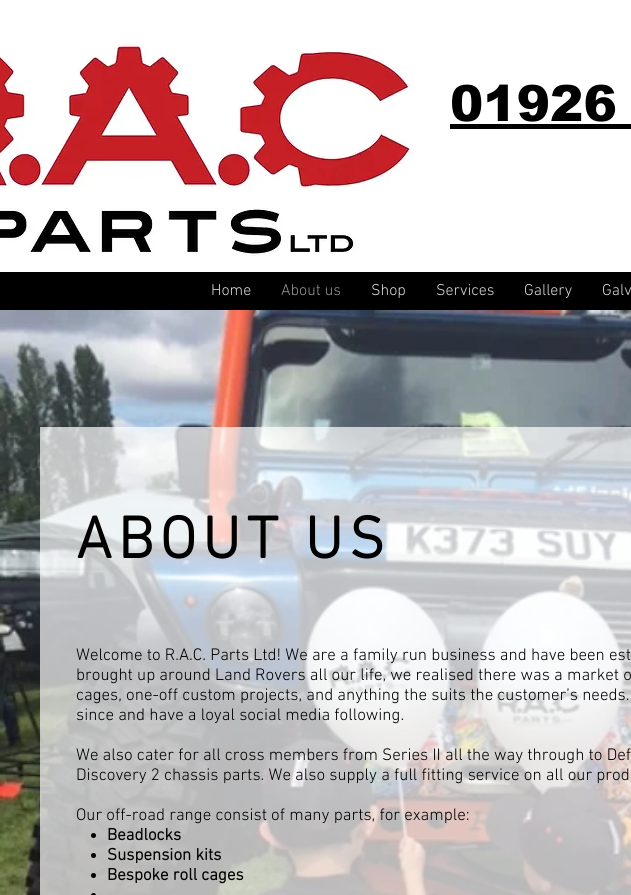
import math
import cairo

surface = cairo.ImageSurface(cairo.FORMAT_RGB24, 631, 895)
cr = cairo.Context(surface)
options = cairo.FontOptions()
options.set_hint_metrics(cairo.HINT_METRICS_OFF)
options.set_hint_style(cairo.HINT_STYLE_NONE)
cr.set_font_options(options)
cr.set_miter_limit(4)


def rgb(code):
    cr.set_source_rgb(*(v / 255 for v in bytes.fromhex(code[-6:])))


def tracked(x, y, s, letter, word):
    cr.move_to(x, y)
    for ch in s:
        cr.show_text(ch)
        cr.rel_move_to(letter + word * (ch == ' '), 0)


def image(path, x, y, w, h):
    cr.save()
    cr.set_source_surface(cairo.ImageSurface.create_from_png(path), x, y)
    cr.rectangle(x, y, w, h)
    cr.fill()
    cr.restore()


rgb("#ffffff")
cr.paint()
image("img/1.png", 0, 44, 414, 212)
rgb("#000000")
cr.rectangle(450, 124, 181, 5)
cr.fill()
cr.rectangle(0, 272, 631, 38)
cr.fill()
image("img/2.png", 0, 310, 631, 585)
cr.set_source_rgba(1, 1, 1, 0.7)
cr.rectangle(40, 427, 591, 468)
cr.fill()
rgb("#000000")
cr.arc(93.5, 835.5, 2.5, 0, 2 * math.pi)
cr.fill()
cr.arc(93.5, 855.5, 2.5, 0, 2 * math.pi)
cr.fill()
cr.arc(93.5, 875.5, 2.5, 0, 2 * math.pi)
cr.fill()
cr.arc(93.5, 895.5, 2.5, 0, 2 * math.pi)
cr.fill()
cr.select_font_face("arial Black")
cr.set_font_size(50)
cr.move_to(450, 121)
cr.show_text("01926")
cr.select_font_face("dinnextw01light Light")
cr.set_font_size(16)
rgb("#d9d9d9")
cr.move_to(211, 295)
cr.show_text("Home")
rgb("#929292")
cr.move_to(281, 295)
cr.show_text("About us")
rgb("#d9d9d9")
for x, y, s in [
    (371, 295, "Shop"),
    (436, 295, "Services"),
    (524, 295, "Gallery"),
    (602, 295, "Galv"),
]:
    cr.move_to(x, y)
    cr.show_text(s)
cr.select_font_face("dinnextw01light", cairo.FONT_SLANT_NORMAL, cairo.FONT_WEIGHT_BOLD)
cr.set_font_size(60)
rgb("#000000")
tracked(76, 558, "ABOUT US", 6, 0)
cr.select_font_face("dinnextw01light Light")
cr.set_font_size(17)
for x, y, s in [
    (76, 660, "Welcome to R.A.C. Parts Ltd! We are a family run business and have been est"),
    (76, 680, "brought up around Land Rovers all our life, we realised there was a market o"),
    (76, 700, "cages, one-off custom projects, and anything the suits the customer’s needs."),
    (76, 720, "since and have a loyal social media following."),
    (76, 760, "We also cater for all cross members from Series II all the way through to Def"),
    (76, 780, "Discovery 2 chassis parts. We also supply a full fitting service on all our prod"),
    (76, 820, "Our off-road range consist of many parts, for example:"),
]:
    cr.move_to(x, y)
    cr.show_text(s)
cr.select_font_face("dinnextw01light", cairo.FONT_SLANT_NORMAL, cairo.FONT_WEIGHT_BOLD)
for x, y, s in [
    (107, 840, "Beadlocks"),
    (107, 860, "Suspension kits"),
    (107, 880, "Bespoke roll cages"),
]:
    cr.move_to(x, y)
    cr.show_text(s)
surface.write_to_png("page.png")
